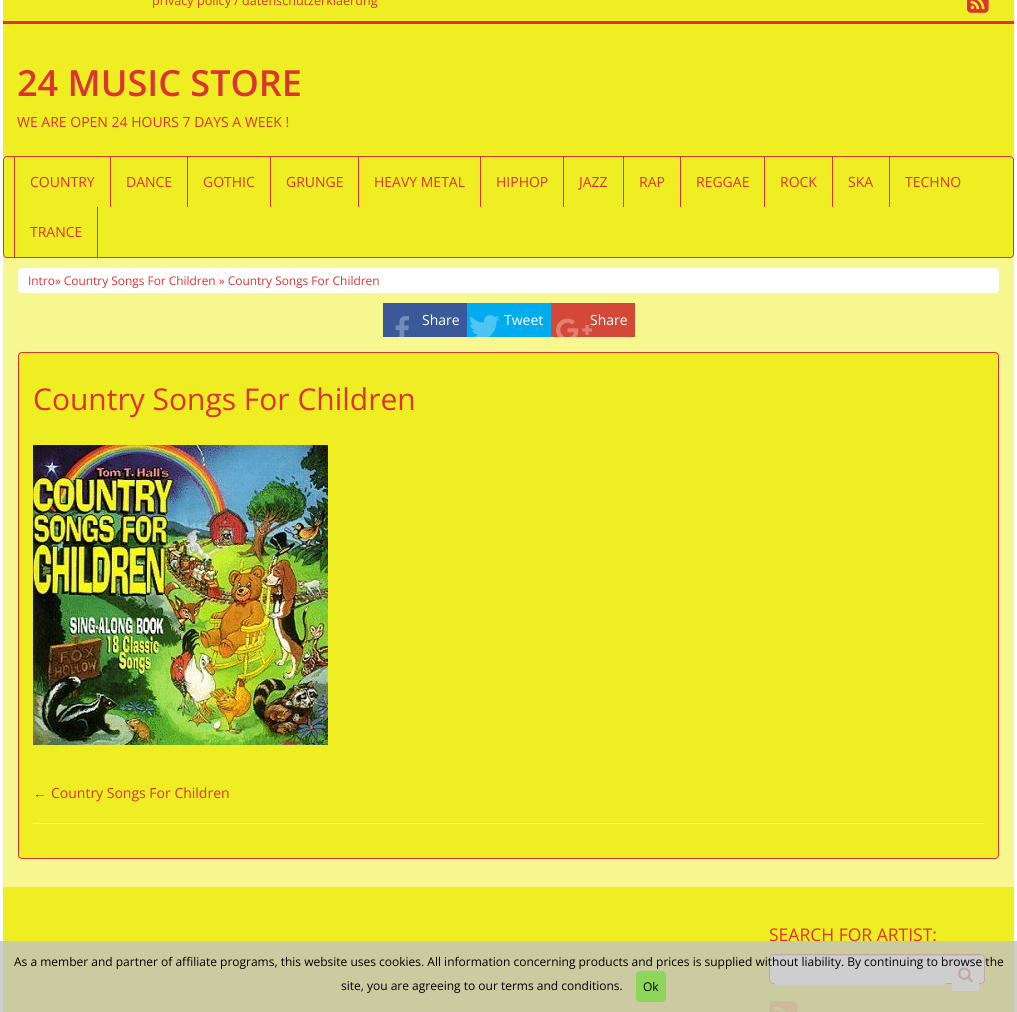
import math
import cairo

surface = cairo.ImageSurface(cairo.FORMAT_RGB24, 1017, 1012)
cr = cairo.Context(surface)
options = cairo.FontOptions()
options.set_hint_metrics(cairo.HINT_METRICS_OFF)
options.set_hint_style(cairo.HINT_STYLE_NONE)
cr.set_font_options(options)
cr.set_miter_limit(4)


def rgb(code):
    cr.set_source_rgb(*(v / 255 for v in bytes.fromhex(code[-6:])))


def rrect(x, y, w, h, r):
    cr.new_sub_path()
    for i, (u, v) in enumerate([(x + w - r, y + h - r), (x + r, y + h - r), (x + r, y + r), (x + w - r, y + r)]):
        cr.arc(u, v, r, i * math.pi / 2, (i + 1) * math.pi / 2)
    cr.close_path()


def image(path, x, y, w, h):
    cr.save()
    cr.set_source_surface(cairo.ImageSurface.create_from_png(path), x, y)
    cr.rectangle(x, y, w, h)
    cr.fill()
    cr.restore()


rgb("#f7f790")
cr.paint()
for x, y, w, h, color in [
    (1014, 0, 3, 1012, "#ffffff"),
    (0, 0, 3, 1012, "#ffffff"),
    (3, 0, 1011, 21, "#eeee22"),
    (3, 21, 1011, 3, "#dd3333"),
]:
    rgb(color)
    cr.rectangle(x, y, w, h)
    cr.fill()
image("img/1.png", 967, 0, 22, 13)
rgb("#eeee22")
cr.rectangle(3, 24, 1011, 132)
cr.fill()
rrect(3.5, 156.5, 1010, 101, 3.5)
cr.fill_preserve()
rgb("#dd3333")
cr.set_line_width(1)
cr.stroke()
for x, y, w, h, color in [
    (14, 157, 1, 100, "#dd3333"),
    (110, 157, 1, 50, "#dd3333"),
    (187, 157, 1, 50, "#dd3333"),
    (270, 157, 1, 50, "#dd3333"),
    (358, 157, 1, 50, "#dd3333"),
    (480, 157, 1, 50, "#dd3333"),
    (563, 157, 1, 50, "#dd3333"),
    (623, 157, 1, 50, "#dd3333"),
    (680, 157, 1, 50, "#dd3333"),
    (764, 157, 1, 50, "#dd3333"),
    (832, 157, 1, 50, "#dd3333"),
    (889, 157, 1, 50, "#dd3333"),
    (97, 207, 1, 50, "#dd3333"),
]:
    rgb(color)
    cr.rectangle(x, y, w, h)
    cr.fill()
rgb("#ffffff")
rrect(18, 268, 981, 25, 4)
cr.fill()
rgb("#3b5999")
cr.rectangle(383, 303, 84, 34)
cr.fill()
image("img/2.png", 395, 316, 14, 21)
rgb("#00aced")
cr.rectangle(467, 303, 84, 34)
cr.fill()
image("img/3.png", 470, 315, 30, 22)
rgb("#d34836")
cr.rectangle(551, 303, 84, 34)
cr.fill()
rgb("#eeee22")
rrect(18.5, 352.5, 980, 506, 3.5)
cr.fill_preserve()
rgb("#dd3333")
cr.stroke()
image("img/5.png", 33, 445, 295, 300)
rgb("#eeeeee")
cr.rectangle(33, 823, 951, 1)
cr.fill()
rgb("#eeee22")
cr.rectangle(3, 887, 1011, 125)
cr.fill()
rgb("#e8e821")
cr.new_path()
cr.move_to(769, 980)
cr.curve_to(769, 983, 770, 985, 773, 985)
cr.line_to(983, 985)
cr.curve_to(985, 984, 985, 982, 985, 980)
cr.curve_to(985, 982, 983, 984, 981, 984)
cr.line_to(773, 984)
cr.curve_to(771, 984, 769, 982, 769, 980)
cr.close_path()
cr.fill()
rgb("#ffffff")
rrect(769, 954, 216, 30, 4)
cr.fill()
rgb("#cccccc")
cr.new_path()
cr.move_to(773, 956)
cr.line_to(981, 956)
cr.curve_to(983, 956, 984, 957, 984, 959)
cr.line_to(984, 958)
cr.curve_to(984, 956, 983, 955, 981, 955)
cr.line_to(773, 955)
cr.curve_to(771, 955, 770, 956, 770, 958)
cr.line_to(770, 959)
cr.curve_to(770, 957, 771, 956, 773, 956)
cr.close_path()
cr.fill()
rrect(769.5, 954.5, 215, 29, 3.5)
rgb("#dd3333")
cr.stroke()
rgb("#ffffff")
rrect(774, 959, 172, 27, 4)
cr.fill()
cr.rectangle(952, 983, 27, 8)
cr.fill()
image("img/6.png", 958, 967, 15, 16)
image("img/7.png", 769, 1001, 29, 11)
cr.select_font_face("Open Sans")
cr.set_font_size(12.6)
rgb("#dd3333")
cr.move_to(152, 5)
cr.show_text("privacy policy / datenschutzerklaerung")
cr.select_font_face("Open Sans SemiBold")
cr.set_font_size(36)
cr.move_to(17, 96)
cr.show_text("24 MUSIC STORE")
cr.select_font_face("Open Sans")
cr.set_font_size(14)
for x, y, s in [
    (17, 127, "WE ARE OPEN 24 HOURS 7 DAYS A WEEK !"),
    (30, 187, "COUNTRY"),
    (126, 187, "DANCE"),
    (203, 187, "GOTHIC"),
    (286, 187, "GRUNGE"),
    (374, 187, "HEAVY METAL"),
    (496, 187, "HIPHOP"),
    (579, 187, "JAZZ"),
    (639, 187, "RAP"),
    (696, 187, "REGGAE"),
    (780, 187, "ROCK"),
    (848, 187, "SKA"),
    (905, 187, "TECHNO"),
    (30, 237, "TRANCE"),
]:
    cr.move_to(x, y)
    cr.show_text(s)
cr.set_font_size(11.9)
cr.move_to(28, 285)
cr.show_text("Intro» Country Songs For Children » Country Songs For Children")
cr.set_font_size(14)
rgb("#ffffff")
for x, y, s in [
    (422, 325, "Share"),
    (504, 325, "Tweet"),
    (590, 325, "Share"),
]:
    cr.move_to(x, y)
    cr.show_text(s)
image("img/4.png", 556, 318, 36, 19)
cr.set_font_size(30)
rgb("#dd3333")
cr.move_to(33, 410)
cr.show_text("Country Songs For Children")
cr.select_font_face("Liberation Sans")
cr.set_font_size(14)
cr.move_to(33, 798)
cr.show_text("←")
cr.select_font_face("Open Sans")
cr.move_to(51, 798)
cr.show_text("Country Songs For Children")
cr.set_font_size(17.5)
cr.move_to(769, 941)
cr.show_text("SEARCH FOR ARTIST:")
cr.set_source_rgba(0.757, 0.757, 0.757, 0.8)
cr.rectangle(0, 941, 1017, 71)
cr.fill()
cr.set_font_size(12)
rgb("#000000")
cr.move_to(14, 966)
cr.show_text("As a member and partner of affiliate programs, this website uses cookies. All information concerning products and prices is supplied without liability. By continuing to browse the")
cr.move_to(341, 990)
cr.show_text("site, you are agreeing to our terms and conditions.")
rgb("#8dd659")
rrect(636, 971, 30, 31, 4)
cr.fill()
rgb("#000000")
cr.move_to(643, 991)
cr.show_text("Ok")
surface.write_to_png("page.png")
